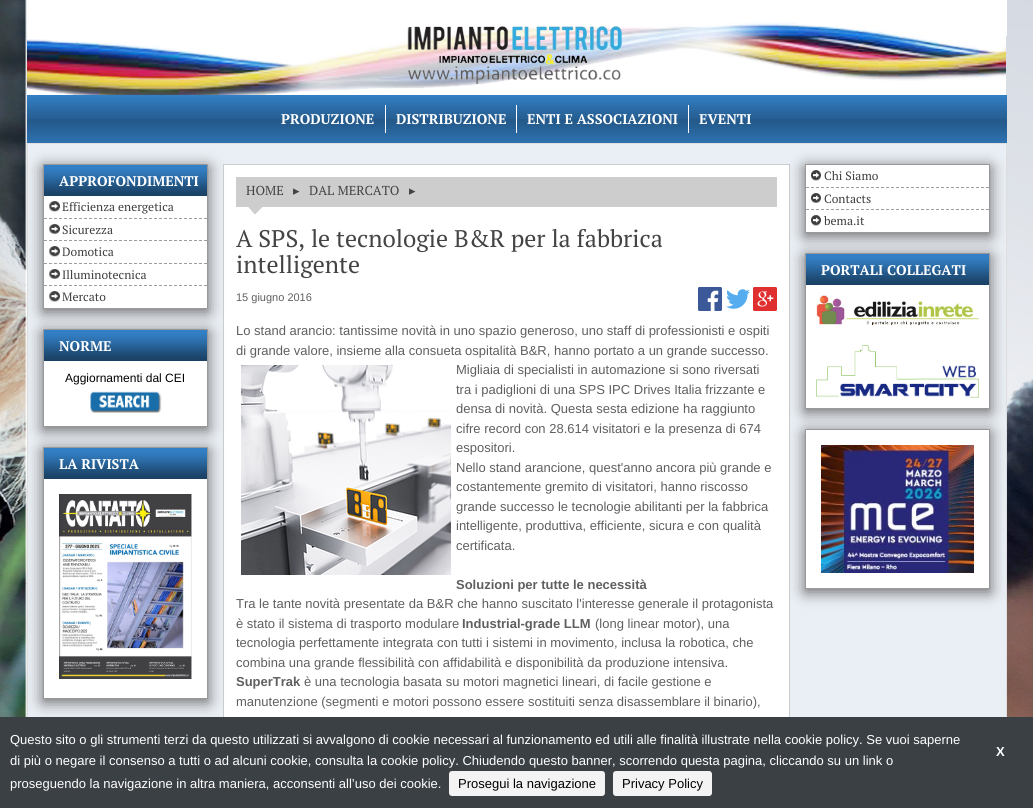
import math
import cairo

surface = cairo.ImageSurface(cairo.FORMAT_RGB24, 1033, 808)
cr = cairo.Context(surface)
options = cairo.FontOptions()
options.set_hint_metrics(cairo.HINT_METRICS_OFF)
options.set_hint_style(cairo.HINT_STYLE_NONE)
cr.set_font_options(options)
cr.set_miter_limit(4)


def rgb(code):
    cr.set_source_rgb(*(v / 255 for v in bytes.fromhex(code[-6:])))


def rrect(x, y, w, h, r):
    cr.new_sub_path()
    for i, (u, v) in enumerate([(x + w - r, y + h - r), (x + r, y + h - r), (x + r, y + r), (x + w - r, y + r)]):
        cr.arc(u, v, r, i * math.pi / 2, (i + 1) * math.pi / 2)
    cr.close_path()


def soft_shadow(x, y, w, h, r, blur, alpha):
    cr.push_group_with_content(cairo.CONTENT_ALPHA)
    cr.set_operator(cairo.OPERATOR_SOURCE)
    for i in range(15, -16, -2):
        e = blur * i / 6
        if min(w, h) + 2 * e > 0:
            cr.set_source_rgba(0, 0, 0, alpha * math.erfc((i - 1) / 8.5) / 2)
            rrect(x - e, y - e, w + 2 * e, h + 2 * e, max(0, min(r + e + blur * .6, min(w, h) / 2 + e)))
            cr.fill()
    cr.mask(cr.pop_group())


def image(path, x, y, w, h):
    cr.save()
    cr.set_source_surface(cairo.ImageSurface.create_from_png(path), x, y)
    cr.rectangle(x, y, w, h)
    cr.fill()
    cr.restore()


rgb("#ffffff")
cr.paint()
image("img/1.png", 0, 0, 1033, 717)
image("img/2.png", 27, 0, 980, 95)
image("img/3.png", 407, 26, 215, 58)
rgb("#337fc5")
cr.rectangle(27, 95, 980, 48)
cr.fill()
image("img/4.png", 27, 97, 980, 46)
for x, y, w, h, color in [
    (385, 105, 1, 28, "#ffffff"),
    (516, 105, 1, 28, "#ffffff"),
    (688, 105, 1, 28, "#ffffff"),
    (28, 144, 978, 573, "#eaeff5"),
]:
    rgb(color)
    cr.rectangle(x, y, w, h)
    cr.fill()
cr.rectangle(27.5, 143.5, 979, 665)
rgb("#dfdfdf")
cr.set_line_width(1)
cr.stroke()
rgb("#ffffff")
cr.rectangle(224, 165, 565, 552)
cr.fill()
cr.rectangle(223.5, 164.5, 566, 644)
rgb("#cccccc")
cr.stroke()
rgb("#666666")
soft_shadow(43, 167, 165, 145, 0, 7.5, 1)
cr.rectangle(43.5, 164.5, 164, 144)
rgb("#999999")
cr.stroke()
rgb("#337fc5")
cr.rectangle(44, 165, 163, 31)
cr.fill()
image("img/5.png", 44, 169, 163, 27)
rgb("#ffffff")
cr.rectangle(44, 196, 163, 112)
cr.fill()
image("img/6.png", 49, 201, 11, 11)
cr.new_path()
cr.move_to(44, 218.5)
cr.line_to(207, 218.5)
rgb("#9e9e9e")
cr.set_dash([3, 2])
cr.stroke()
image("img/7.png", 49, 224, 11, 10)
cr.new_path()
cr.move_to(44, 240.5)
cr.line_to(207, 240.5)
cr.stroke()
image("img/6.png", 49, 246, 11, 11)
cr.new_path()
cr.move_to(44, 263.5)
cr.line_to(207, 263.5)
cr.stroke()
image("img/7.png", 49, 269, 11, 10)
cr.new_path()
cr.move_to(44, 285.5)
cr.line_to(207, 285.5)
cr.stroke()
image("img/8.png", 49, 291, 11, 11)
rgb("#666666")
soft_shadow(43, 332, 165, 98, 0, 7.5, 1)
cr.rectangle(43.5, 329.5, 164, 97)
rgb("#999999")
cr.set_dash([])
cr.stroke()
rgb("#337fc5")
cr.rectangle(44, 330, 163, 31)
cr.fill()
image("img/5.png", 44, 334, 163, 27)
rgb("#ffffff")
cr.rectangle(44, 361, 163, 65)
cr.fill()
image("img/9.png", 90, 391, 72, 22)
rgb("#666666")
soft_shadow(43, 450, 165, 252, 0, 7.5, 1)
cr.rectangle(43.5, 447.5, 164, 251)
rgb("#999999")
cr.stroke()
rgb("#337fc5")
cr.rectangle(44, 448, 163, 31)
cr.fill()
image("img/5.png", 44, 452, 163, 27)
rgb("#ffffff")
cr.rectangle(44, 479, 163, 219)
cr.fill()
image("img/10.png", 59, 494, 133, 185)
rgb("#cdcdcd")
cr.rectangle(236, 177, 541, 38)
cr.fill()
image("img/11.png", 236, 207, 541, 8)
image("img/12.png", 698, 287, 24, 24)
image("img/13.png", 726, 289, 24, 20)
image("img/14.png", 753, 287, 24, 24)
image("img/15.png", 241, 365, 210, 210)
rgb("#666666")
soft_shadow(805, 167, 185, 69, 0, 7.5, 1)
cr.rectangle(805.5, 164.5, 184, 68)
rgb("#999999")
cr.stroke()
rgb("#ffffff")
cr.rectangle(806, 165, 183, 67)
cr.fill()
image("img/16.png", 811, 170, 10, 11)
cr.new_path()
cr.move_to(806, 187.5)
cr.line_to(989, 187.5)
rgb("#9e9e9e")
cr.set_dash([3, 2])
cr.stroke()
image("img/17.png", 811, 193, 10, 10)
cr.new_path()
cr.move_to(806, 209.5)
cr.line_to(989, 209.5)
cr.stroke()
image("img/18.png", 811, 215, 10, 11)
rgb("#666666")
soft_shadow(805, 256, 185, 156, 0, 7.5, 1)
cr.rectangle(805.5, 253.5, 184, 155)
rgb("#999999")
cr.set_dash([])
cr.stroke()
rgb("#337fc5")
cr.rectangle(806, 254, 183, 31)
cr.fill()
image("img/19.png", 806, 258, 183, 27)
rgb("#ffffff")
cr.rectangle(806, 285, 183, 123)
cr.fill()
image("img/20.png", 816, 295, 163, 30)
image("img/21.png", 816, 345, 163, 53)
rgb("#666666")
soft_shadow(805, 432, 185, 160, 0, 7.5, 1)
rgb("#ffffff")
cr.rectangle(805.5, 429.5, 184, 159)
cr.fill_preserve()
rgb("#999999")
cr.stroke()
image("img/22.png", 821, 445, 153, 128)
rgb("#3b4045")
cr.rectangle(0, 717, 1033, 91)
cr.fill()
rgb("#f3f3f3")
rrect(449, 771, 156, 25, 3)
cr.fill()
rrect(613, 771, 99, 25, 3)
cr.fill()
cr.select_font_face("PT Serif", cairo.FONT_SLANT_NORMAL, cairo.FONT_WEIGHT_BOLD)
cr.set_font_size(14)
rgb("#ffffff")
for x, y, s in [
    (281, 124, "PRODUZIONE"),
    (396, 124, "DISTRIBUZIONE"),
    (527, 124, "ENTI E ASSOCIAZIONI"),
    (699, 124, "EVENTI"),
    (59, 186, "APPROFONDIMENTI"),
]:
    cr.move_to(x, y)
    cr.show_text(s)
cr.select_font_face("PT Serif")
cr.set_font_size(12)
rgb("#3e3e40")
for x, y, s in [
    (62, 211, "Efficienza energetica"),
    (62, 234, "Sicurezza"),
    (62, 256, "Domotica"),
    (62, 279, "Illuminotecnica"),
    (62, 301, "Mercato"),
]:
    cr.move_to(x, y)
    cr.show_text(s)
cr.select_font_face("PT Serif", cairo.FONT_SLANT_NORMAL, cairo.FONT_WEIGHT_BOLD)
cr.set_font_size(14)
rgb("#ffffff")
cr.move_to(59, 351)
cr.show_text("NORME")
cr.select_font_face("Liberation Sans")
cr.set_font_size(12)
rgb("#000000")
cr.move_to(65, 382)
cr.show_text("Aggiornamenti dal CEI")
cr.select_font_face("PT Serif", cairo.FONT_SLANT_NORMAL, cairo.FONT_WEIGHT_BOLD)
cr.set_font_size(14)
rgb("#ffffff")
cr.move_to(59, 469)
cr.show_text("LA RIVISTA")
cr.select_font_face("PT Serif")
cr.set_font_size(13)
rgb("#444444")
cr.move_to(246, 195)
cr.show_text("HOME")
cr.select_font_face("DejaVu Sans")
cr.move_to(293, 195)
cr.show_text("▸")
cr.select_font_face("PT Serif")
cr.move_to(309, 195)
cr.show_text("DAL MERCATO")
cr.select_font_face("DejaVu Sans")
cr.move_to(409, 195)
cr.show_text("▸")
cr.select_font_face("PT Serif")
cr.set_font_size(24)
cr.move_to(236, 247)
cr.show_text("A SPS, le tecnologie B&R per la fabbrica")
cr.move_to(236, 273)
cr.show_text("intelligente")
cr.select_font_face("Liberation Sans")
cr.set_font_size(11)
rgb("#5f5f5f")
cr.move_to(236, 301)
cr.show_text("15 giugno 2016")
cr.set_font_size(13)
for x, y, s in [
    (236, 335, "Lo stand arancio: tantissime novità in uno spazio generoso, uno staff di professionisti e ospiti"),
    (236, 355, "di grande valore, insieme alla consueta ospitalità B&R, hanno portato a un grande successo."),
    (456, 374, "Migliaia di specialisti in automazione si sono riversati"),
    (456, 394, "tra i padiglioni di una SPS IPC Drives Italia frizzante e"),
    (456, 413, "densa di novità. Questa sesta edizione ha raggiunto"),
    (456, 433, "cifre record con 28.614 visitatori e la presenza di 674"),
    (456, 452, "espositori."),
    (456, 472, "Nello stand arancione, quest'anno ancora più grande e"),
    (456, 491, "costantemente gremito di visitatori, hanno riscosso"),
    (456, 511, "grande successo le tecnologie abilitanti per la fabbrica"),
    (456, 530, "intelligente, produttiva, efficiente, sicura e con qualità"),
    (456, 550, "certificata."),
]:
    cr.move_to(x, y)
    cr.show_text(s)
cr.select_font_face("Liberation Sans", cairo.FONT_SLANT_NORMAL, cairo.FONT_WEIGHT_BOLD)
cr.move_to(456, 589)
cr.show_text("Soluzioni per tutte le necessità")
cr.select_font_face("Liberation Sans")
cr.move_to(236, 608)
cr.show_text("Tra le tante novità presentate da B&R che hanno suscitato l'interesse generale il protagonista")
cr.move_to(236, 628)
cr.show_text("è stato il sistema di trasporto modulare")
cr.select_font_face("Liberation Sans", cairo.FONT_SLANT_NORMAL, cairo.FONT_WEIGHT_BOLD)
cr.move_to(462, 628)
cr.show_text("Industrial-grade LLM")
cr.select_font_face("Liberation Sans")
for x, y, s in [
    (595, 628, "(long linear motor), una"),
    (236, 647, "tecnologia perfettamente integrata con tutti i sistemi in movimento, inclusa la robotica, che"),
    (236, 667, "combina una grande flessibilità con affidabilità e disponibilità da produzione intensiva."),
]:
    cr.move_to(x, y)
    cr.show_text(s)
cr.select_font_face("Liberation Sans", cairo.FONT_SLANT_NORMAL, cairo.FONT_WEIGHT_BOLD)
cr.move_to(236, 686)
cr.show_text("SuperTrak")
cr.select_font_face("Liberation Sans")
cr.move_to(304, 686)
cr.show_text("è una tecnologia basata su motori magnetici lineari, di facile gestione e")
cr.move_to(236, 706)
cr.show_text("manutenzione (segmenti e motori possono essere sostituiti senza disassemblare il binario),")
cr.select_font_face("PT Serif")
cr.set_font_size(12)
rgb("#3e3e40")
for x, y, s in [
    (824, 180, "Chi Siamo"),
    (824, 203, "Contacts"),
    (824, 225, "bema.it"),
]:
    cr.move_to(x, y)
    cr.show_text(s)
cr.select_font_face("PT Serif", cairo.FONT_SLANT_NORMAL, cairo.FONT_WEIGHT_BOLD)
cr.set_font_size(14)
rgb("#ffffff")
cr.move_to(821, 275)
cr.show_text("PORTALI COLLEGATI")
cr.select_font_face("Liberation Sans")
cr.set_font_size(13)
cr.move_to(10, 744)
cr.show_text("Questo sito o gli strumenti terzi da questo utilizzati si avvalgono di cookie necessari al funzionamento ed utili alle finalità illustrate nella cookie policy. Se vuoi saperne")
cr.select_font_face("Liberation Sans", cairo.FONT_SLANT_NORMAL, cairo.FONT_WEIGHT_BOLD)
cr.move_to(996, 756)
cr.show_text("X")
cr.select_font_face("Liberation Sans")
cr.move_to(10, 765)
cr.show_text("di più o negare il consenso a tutti o ad alcuni cookie, consulta la cookie policy. Chiudendo questo banner, scorrendo questa pagina, cliccando su un link o")
cr.move_to(10, 788)
cr.show_text("proseguendo la navigazione in altra maniera, acconsenti all’uso dei cookie.")
rgb("#000000")
cr.move_to(458, 788)
cr.show_text("Prosegui la navigazione")
cr.move_to(622, 788)
cr.show_text("Privacy Policy")
surface.write_to_png("page.png")
